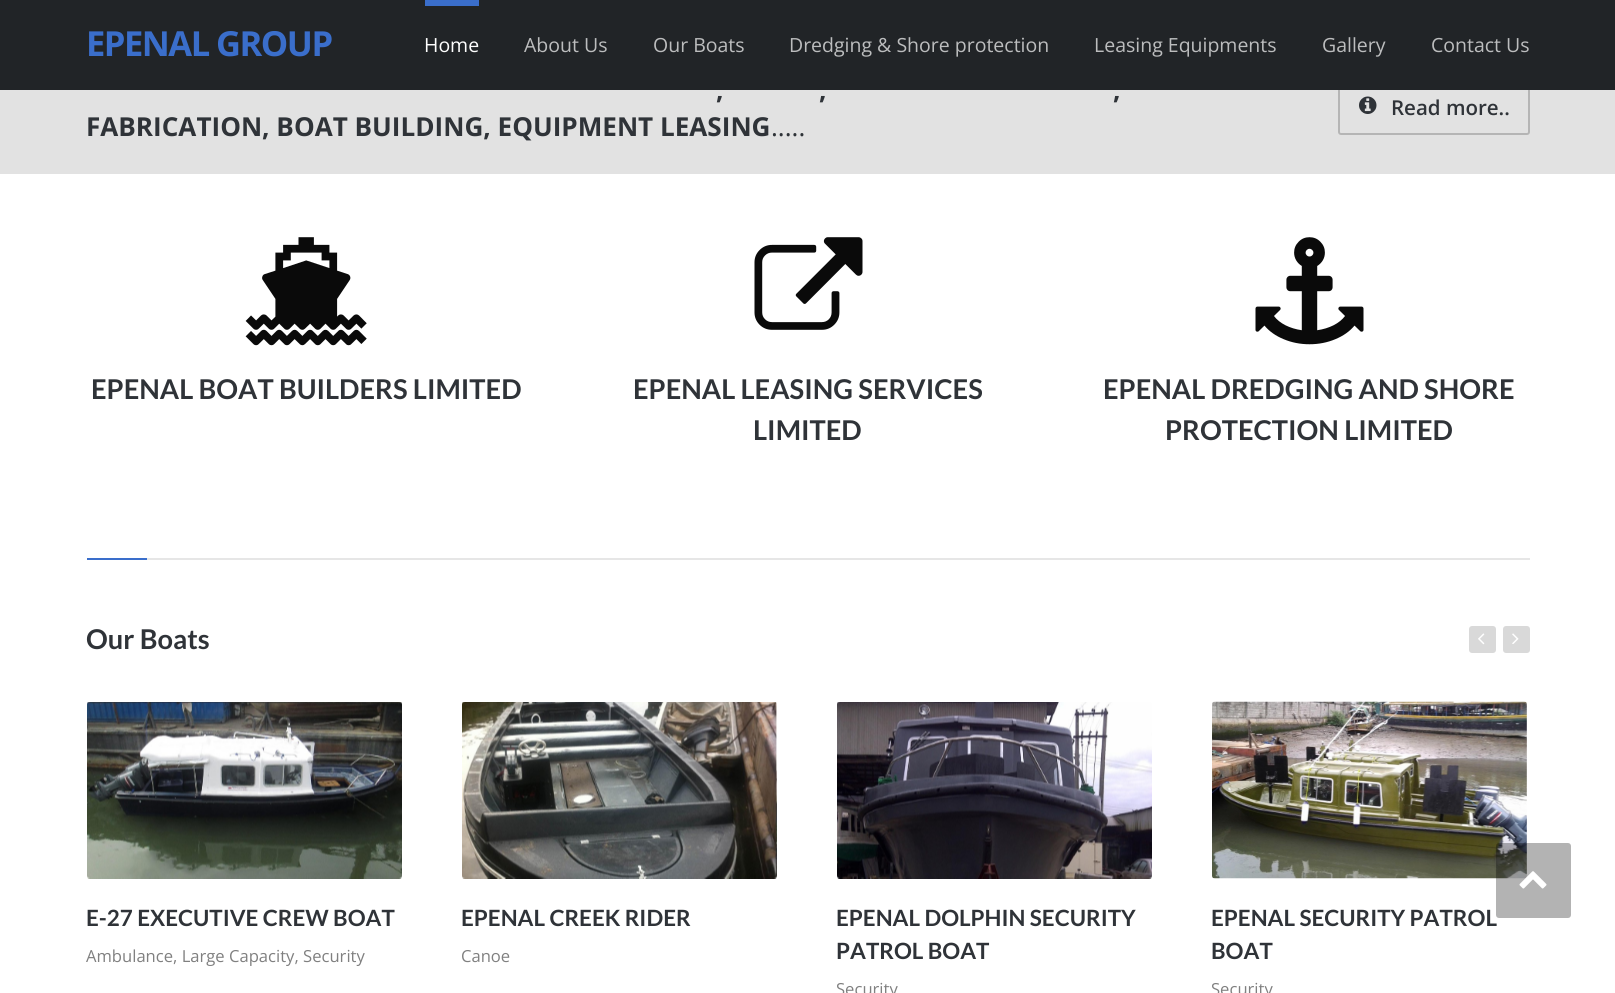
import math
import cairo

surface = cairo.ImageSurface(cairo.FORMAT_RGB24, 1615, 993)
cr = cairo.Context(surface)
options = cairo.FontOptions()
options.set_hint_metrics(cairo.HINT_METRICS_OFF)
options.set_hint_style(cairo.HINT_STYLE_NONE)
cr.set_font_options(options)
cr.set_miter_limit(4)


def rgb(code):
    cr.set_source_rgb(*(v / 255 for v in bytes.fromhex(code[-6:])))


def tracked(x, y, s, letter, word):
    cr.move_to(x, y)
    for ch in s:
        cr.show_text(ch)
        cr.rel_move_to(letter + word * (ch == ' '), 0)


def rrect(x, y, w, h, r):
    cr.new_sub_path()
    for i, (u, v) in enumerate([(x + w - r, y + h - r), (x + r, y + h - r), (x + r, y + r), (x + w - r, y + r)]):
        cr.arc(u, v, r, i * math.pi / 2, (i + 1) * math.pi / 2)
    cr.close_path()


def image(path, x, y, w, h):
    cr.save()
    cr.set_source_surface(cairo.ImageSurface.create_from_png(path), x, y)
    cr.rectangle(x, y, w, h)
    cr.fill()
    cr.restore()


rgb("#ffffff")
cr.paint()
rgb("#e2e2e2")
cr.rectangle(0, 90, 1615, 84)
cr.fill()
rrect(1339, 79, 190, 55, 2)
rgb("#b5b5b5")
cr.stroke()
rgb("#212427")
cr.rectangle(0, 0, 1615, 90)
cr.fill()
rgb("#3a6ecb")
cr.rectangle(425, 0, 54, 6)
cr.fill()
image("img/1.png", 1359, 96, 18, 18)
image("img/2.png", 245, 237, 122, 109)
image("img/3.png", 754, 237, 109, 93)
image("img/4.png", 1255, 237, 109, 108)
rgb("#e6e6e6")
cr.rectangle(147, 558, 1383, 2)
cr.fill()
rgb("#3a6ecb")
cr.rectangle(87, 558, 60, 2)
cr.fill()
rgb("#d9d9d9")
rrect(1469, 626, 27, 27, 3)
cr.fill()
image("img/5.png", 1478, 633, 7, 12)
rrect(1503, 626, 27, 27, 3)
cr.fill()
image("img/6.png", 1512, 633, 7, 11)
image("img/7.png", 87, 702, 315, 177)
image("img/8.png", 462, 702, 315, 177)
image("img/9.png", 837, 702, 315, 177)
image("img/10.png", 1212, 701, 315, 178)
cr.select_font_face("Open Sans", cairo.FONT_SLANT_NORMAL, cairo.FONT_WEIGHT_BOLD)
cr.set_font_size(34.5)
rgb("#3a6ecb")
tracked(86, 56, "EPENAL GROUP", -1.5, 0)
cr.select_font_face("Open Sans")
cr.set_font_size(19.5)
rgb("#ffffff")
cr.move_to(424, 52)
cr.show_text("Home")
rgb("#bcbdbe")
for x, y, s in [
    (524, 52, "About Us"),
    (653, 52, "Our Boats"),
    (789, 52, "Dredging & Shore protection"),
    (1094, 52, "Leasing Equipments"),
    (1322, 52, "Gallery"),
    (1431, 52, "Contact Us"),
]:
    cr.move_to(x, y)
    cr.show_text(s)
cr.select_font_face("Open Sans", cairo.FONT_SLANT_NORMAL, cairo.FONT_WEIGHT_BOLD)
cr.set_font_size(26.1)
rgb("#2f3338")
for x, y, s in [
    (716, 99, ","),
    (819, 99, ","),
    (1113, 99, ","),
    (86, 136, "FABRICATION, BOAT BUILDING, EQUIPMENT LEASING"),
]:
    cr.move_to(x, y)
    cr.show_text(s)
cr.select_font_face("Open Sans")
cr.move_to(771, 136)
cr.show_text(".....")
cr.select_font_face("Open Sans SemiBold")
cr.set_font_size(20.5)
cr.move_to(1391, 115)
cr.show_text("Read more..")
cr.select_font_face("Lato", cairo.FONT_SLANT_NORMAL, cairo.FONT_WEIGHT_BOLD)
cr.set_font_size(27.25)
for x, y, s in [
    (91, 399, "EPENAL BOAT BUILDERS LIMITED"),
    (633, 399, "EPENAL LEASING SERVICES"),
    (753, 440, "LIMITED"),
    (1103, 399, "EPENAL DREDGING AND SHORE"),
    (1165, 440, "PROTECTION LIMITED"),
    (86, 649, "Our Boats"),
]:
    cr.move_to(x, y)
    cr.show_text(s)
cr.set_font_size(22.4)
cr.move_to(86, 926)
cr.show_text("E-27 EXECUTIVE CREW BOAT")
cr.select_font_face("Open Sans")
cr.set_font_size(16.6)
rgb("#808080")
cr.move_to(86, 962)
cr.show_text("Ambulance, Large Capacity, Security")
cr.select_font_face("Lato", cairo.FONT_SLANT_NORMAL, cairo.FONT_WEIGHT_BOLD)
cr.set_font_size(22.4)
rgb("#2f3338")
cr.move_to(461, 926)
cr.show_text("EPENAL CREEK RIDER")
cr.select_font_face("Open Sans")
cr.set_font_size(16.6)
rgb("#808080")
cr.move_to(461, 962)
cr.show_text("Canoe")
cr.select_font_face("Lato", cairo.FONT_SLANT_NORMAL, cairo.FONT_WEIGHT_BOLD)
cr.set_font_size(22.4)
rgb("#2f3338")
cr.move_to(836, 926)
cr.show_text("EPENAL DOLPHIN SECURITY")
cr.move_to(836, 959)
cr.show_text("PATROL BOAT")
cr.select_font_face("Open Sans")
cr.set_font_size(16.6)
rgb("#808080")
cr.move_to(836, 995)
cr.show_text("Security")
cr.select_font_face("Lato", cairo.FONT_SLANT_NORMAL, cairo.FONT_WEIGHT_BOLD)
cr.set_font_size(22.4)
rgb("#2f3338")
cr.move_to(1211, 926)
cr.show_text("EPENAL SECURITY PATROL")
cr.move_to(1211, 959)
cr.show_text("BOAT")
cr.select_font_face("Open Sans")
cr.set_font_size(16.6)
rgb("#808080")
cr.move_to(1211, 995)
cr.show_text("Security")
cr.set_source_rgba(0, 0, 0, 0.3)
rrect(1496, 843, 75, 75, 3)
cr.fill()
image("img/11.png", 1519, 871, 28, 18)
surface.write_to_png("page.png")
